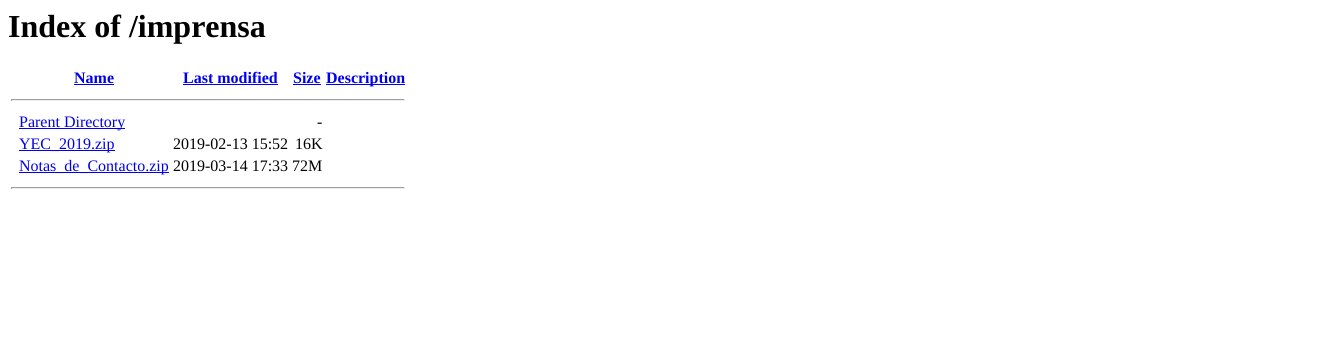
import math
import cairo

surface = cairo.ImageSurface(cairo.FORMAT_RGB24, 1321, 343)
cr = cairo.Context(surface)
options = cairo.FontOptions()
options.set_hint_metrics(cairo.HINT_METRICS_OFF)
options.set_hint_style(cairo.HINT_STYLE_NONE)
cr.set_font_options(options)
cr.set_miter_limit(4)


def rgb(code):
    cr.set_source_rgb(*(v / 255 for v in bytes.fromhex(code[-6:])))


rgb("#ffffff")
cr.paint()
for x, y, w, h, color in [
    (74, 84, 40, 1, "#0000ee"),
    (183, 84, 95, 1, "#0000ee"),
    (293, 84, 28, 1, "#0000ee"),
    (326, 84, 79, 1, "#0000ee"),
    (11, 99, 394, 1, "#9f9f9f"),
    (404, 99, 1, 2, "#eeeeee"),
    (11, 100, 394, 1, "#eeeeee"),
    (11, 99, 1, 2, "#9f9f9f"),
    (19, 128, 106, 1, "#0000ee"),
    (19, 150, 96, 1, "#0000ee"),
    (19, 172, 150, 1, "#0000ee"),
    (11, 187, 394, 1, "#9f9f9f"),
    (404, 187, 1, 2, "#eeeeee"),
    (11, 188, 394, 1, "#eeeeee"),
    (11, 187, 1, 2, "#9f9f9f"),
]:
    rgb(color)
    cr.rectangle(x, y, w, h)
    cr.fill()
cr.select_font_face("Liberation Serif", cairo.FONT_SLANT_NORMAL, cairo.FONT_WEIGHT_BOLD)
cr.set_font_size(32)
rgb("#000000")
cr.move_to(8, 37)
cr.show_text("Index of /imprensa")
cr.set_font_size(16)
rgb("#0000ee")
for x, y, s in [
    (74, 83, "Name"),
    (183, 83, "Last modified"),
    (293, 83, "Size"),
    (326, 83, "Description"),
]:
    cr.move_to(x, y)
    cr.show_text(s)
cr.select_font_face("Liberation Serif")
cr.move_to(19, 127)
cr.show_text("Parent Directory")
rgb("#000000")
cr.move_to(317, 127)
cr.show_text("-")
rgb("#0000ee")
cr.move_to(19, 149)
cr.show_text("YEC_2019.zip")
rgb("#000000")
cr.move_to(173, 149)
cr.show_text("2019-02-13 15:52")
cr.move_to(295, 149)
cr.show_text("16K")
rgb("#0000ee")
cr.move_to(19, 171)
cr.show_text("Notas_de_Contacto.zip")
rgb("#000000")
cr.move_to(173, 171)
cr.show_text("2019-03-14 17:33 72M")
surface.write_to_png("page.png")
